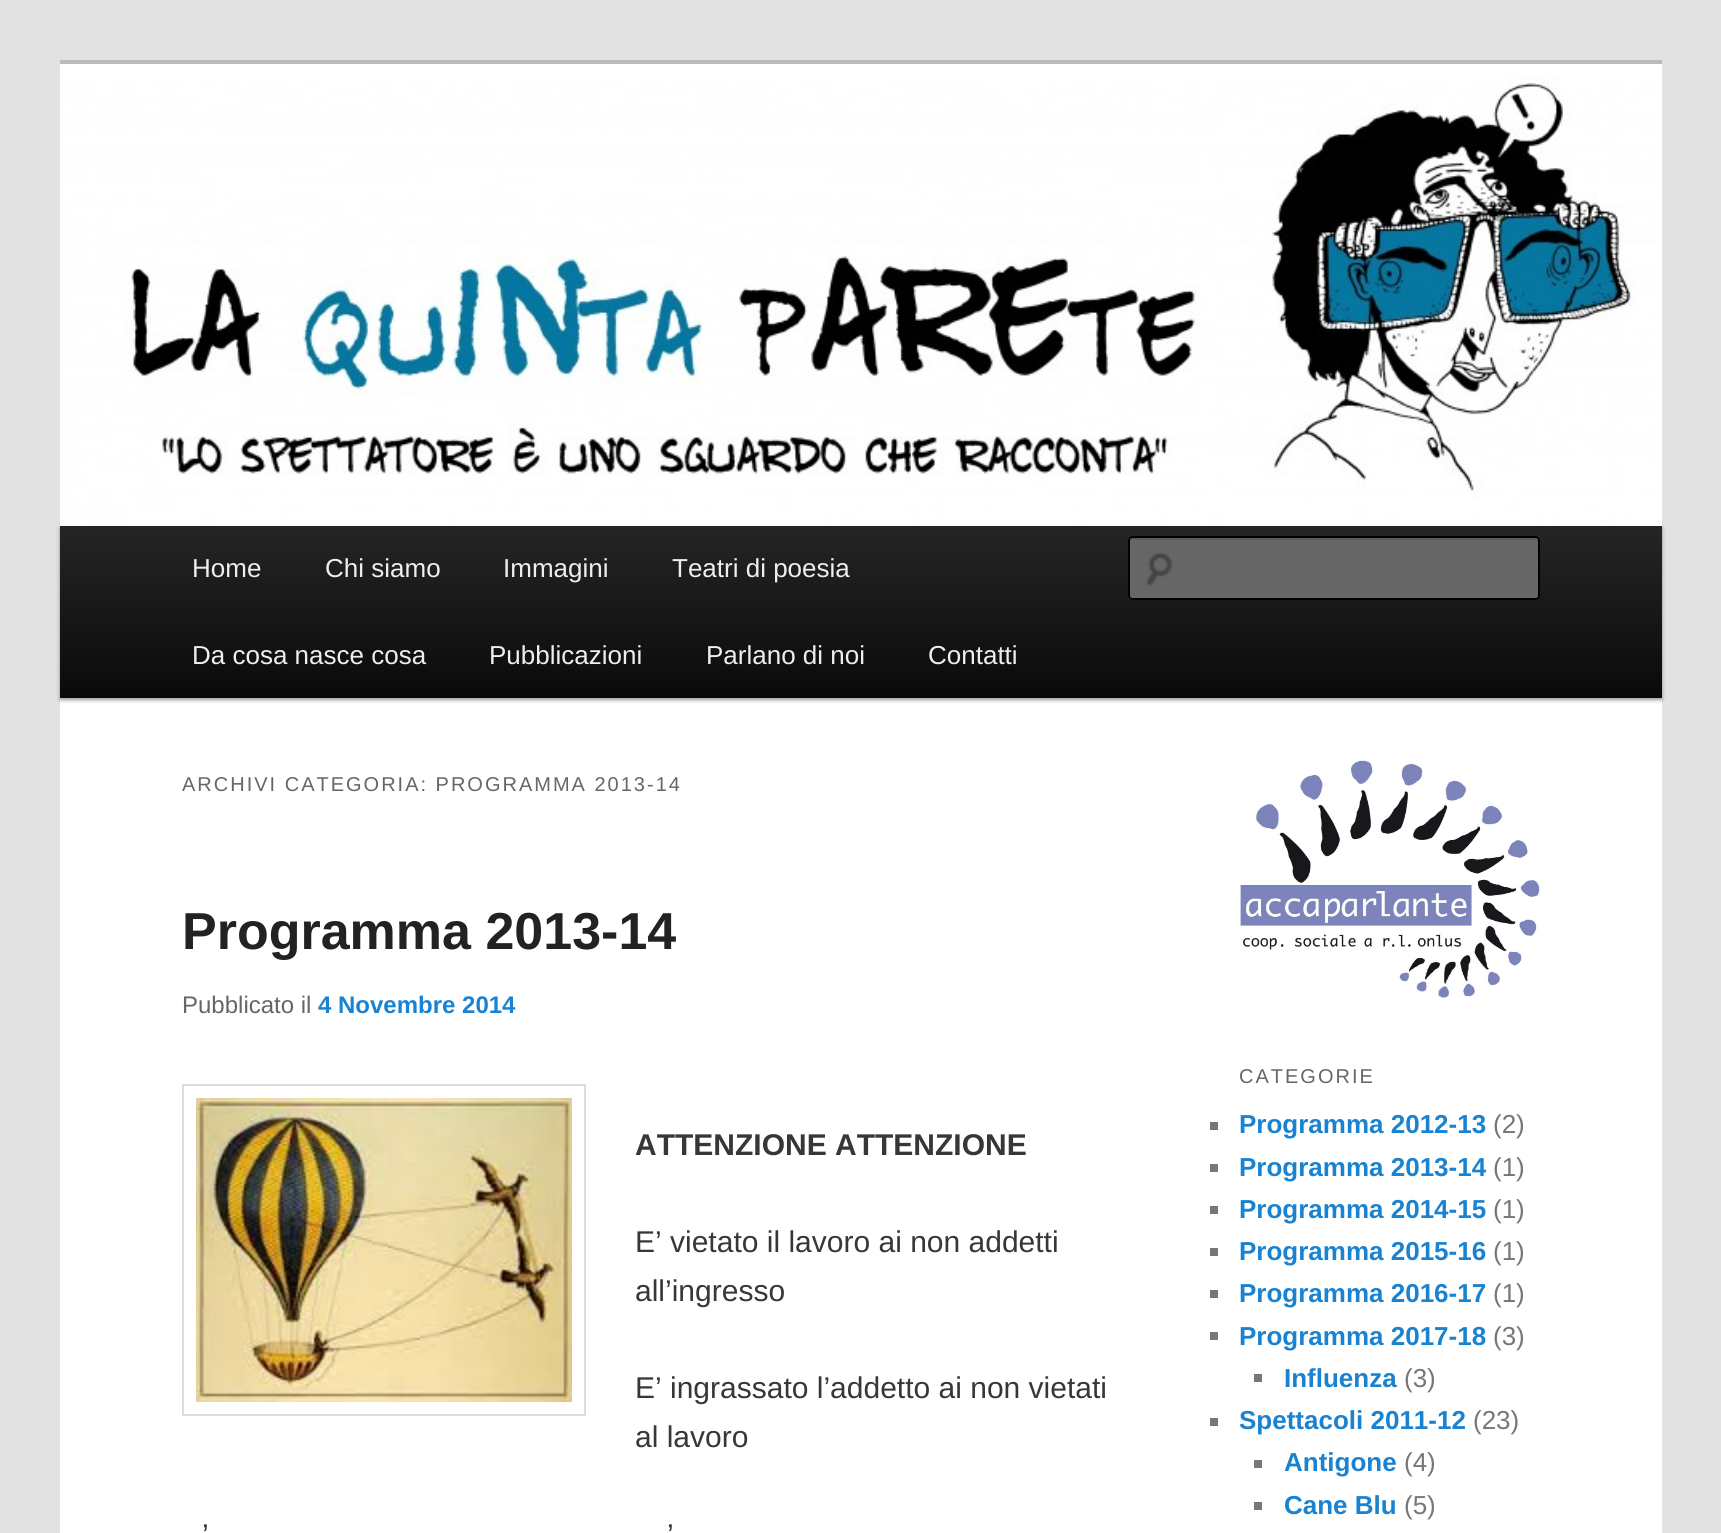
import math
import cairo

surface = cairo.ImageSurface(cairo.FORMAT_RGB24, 1721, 1533)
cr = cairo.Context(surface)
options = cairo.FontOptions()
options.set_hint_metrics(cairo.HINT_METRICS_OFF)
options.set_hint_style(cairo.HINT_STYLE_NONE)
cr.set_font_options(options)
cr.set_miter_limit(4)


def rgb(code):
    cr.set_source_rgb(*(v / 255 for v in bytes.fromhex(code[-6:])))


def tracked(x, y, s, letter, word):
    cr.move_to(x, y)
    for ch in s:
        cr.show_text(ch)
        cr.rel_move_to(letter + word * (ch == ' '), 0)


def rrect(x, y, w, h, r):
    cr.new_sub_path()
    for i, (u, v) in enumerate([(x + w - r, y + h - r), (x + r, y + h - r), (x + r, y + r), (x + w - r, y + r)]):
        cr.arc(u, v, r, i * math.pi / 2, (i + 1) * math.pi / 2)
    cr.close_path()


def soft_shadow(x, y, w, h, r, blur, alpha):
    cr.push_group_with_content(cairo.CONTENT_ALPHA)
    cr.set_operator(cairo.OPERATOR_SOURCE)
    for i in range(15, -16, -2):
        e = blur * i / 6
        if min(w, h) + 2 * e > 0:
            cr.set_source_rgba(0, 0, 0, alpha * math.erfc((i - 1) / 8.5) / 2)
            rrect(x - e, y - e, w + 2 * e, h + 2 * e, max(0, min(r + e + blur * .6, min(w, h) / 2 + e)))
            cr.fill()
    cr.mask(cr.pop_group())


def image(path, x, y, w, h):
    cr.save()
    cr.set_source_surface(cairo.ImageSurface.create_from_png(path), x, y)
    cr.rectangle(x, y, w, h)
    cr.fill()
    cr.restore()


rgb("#e2e2e2")
cr.paint()
rgb("#ffffff")
cr.rectangle(60, 64, 1602, 1469)
cr.fill()
rgb("#bbbbbb")
cr.rectangle(60, 60, 1602, 4)
cr.fill()
rgb("#000000")
soft_shadow(60, 528, 1602, 172, 0, 2, 0.4)
image("img/1.png", 60, 77, 1602, 449)
gradient = cairo.LinearGradient(861, 526, 861, 698)
gradient.add_color_stop_rgba(0, 0.145, 0.145, 0.145, 1)
gradient.add_color_stop_rgba(1, 0.039, 0.039, 0.039, 1)
cr.set_source(gradient)
cr.rectangle(60, 526, 1602, 172)
cr.fill()
rgb("#666666")
rrect(1128, 536, 412, 64, 4)
cr.fill()
image("img/2.png", 1146, 552, 27, 34)
rgb("#5c5c5c")
cr.new_path()
cr.move_to(1132, 540)
cr.line_to(1536, 540)
cr.curve_to(1537, 540, 1538, 541, 1538, 542)
cr.curve_to(1538, 540, 1538, 538, 1536, 538)
cr.line_to(1132, 538)
cr.line_to(1130, 539)
cr.line_to(1130, 542)
cr.curve_to(1130, 541, 1131, 540, 1132, 540)
cr.close_path()
cr.fill()
rrect(1129, 537, 410, 62, 3)
rgb("#000000")
cr.stroke()
cr.rectangle(183, 1085, 402, 330)
rgb("#dddddd")
cr.stroke()
image("img/3.png", 196, 1098, 376, 304)
image("img/4.png", 1240, 760, 300, 238)
for x, y, w, h, color in [
    (1210, 1122, 8, 8, "#777777"),
    (1210, 1164, 8, 8, "#777777"),
    (1210, 1206, 8, 8, "#777777"),
    (1210, 1248, 8, 8, "#777777"),
    (1210, 1290, 8, 8, "#777777"),
    (1210, 1332, 8, 8, "#777777"),
    (1254, 1374, 8, 8, "#777777"),
    (1210, 1418, 8, 8, "#777777"),
    (1254, 1460, 8, 8, "#777777"),
    (1254, 1502, 8, 8, "#777777"),
]:
    rgb(color)
    cr.rectangle(x, y, w, h)
    cr.fill()
cr.select_font_face("Liberation Sans")
cr.set_font_size(26)
rgb("#eeeeee")
for x, y, s in [
    (192, 577, "Home"),
    (325, 577, "Chi siamo"),
    (503, 577, "Immagini"),
    (672, 577, "Teatri di poesia"),
    (192, 664, "Da cosa nasce cosa"),
    (489, 664, "Pubblicazioni"),
    (706, 664, "Parlano di noi"),
    (928, 664, "Contatti"),
]:
    cr.move_to(x, y)
    cr.show_text(s)
cr.set_font_size(20)
rgb("#666666")
tracked(182, 791, "ARCHIVI CATEGORIA: PROGRAMMA 2013-14", 2, 0)
cr.select_font_face("Liberation Sans", cairo.FONT_SLANT_NORMAL, cairo.FONT_WEIGHT_BOLD)
cr.set_font_size(52)
rgb("#222222")
cr.move_to(182, 949)
cr.show_text("Programma 2013-14")
cr.select_font_face("Liberation Sans")
cr.set_font_size(24)
rgb("#666666")
cr.move_to(182, 1013)
cr.show_text("Pubblicato il")
cr.select_font_face("Liberation Sans", cairo.FONT_SLANT_NORMAL, cairo.FONT_WEIGHT_BOLD)
rgb("#1982d1")
cr.move_to(318, 1013)
cr.show_text("4 Novembre 2014")
cr.set_font_size(30)
rgb("#373737")
cr.move_to(635, 1155)
cr.show_text("ATTENZIONE ATTENZIONE")
cr.select_font_face("Liberation Sans")
for x, y, s in [
    (635, 1252, "E’ vietato il lavoro ai non addetti"),
    (635, 1301, "all’ingresso"),
    (635, 1398, "E’ ingrassato l’addetto ai non vietati"),
    (635, 1447, "al lavoro"),
    (202, 1545, "’"),
    (667, 1545, "’"),
]:
    cr.move_to(x, y)
    cr.show_text(s)
cr.set_font_size(20)
rgb("#666666")
tracked(1239, 1083, "CATEGORIE", 2, 0)
cr.select_font_face("Liberation Sans", cairo.FONT_SLANT_NORMAL, cairo.FONT_WEIGHT_BOLD)
cr.set_font_size(26)
rgb("#1982d1")
cr.move_to(1239, 1133)
cr.show_text("Programma 2012-13")
cr.select_font_face("Liberation Sans")
rgb("#777777")
cr.move_to(1493, 1133)
cr.show_text("(2)")
cr.select_font_face("Liberation Sans", cairo.FONT_SLANT_NORMAL, cairo.FONT_WEIGHT_BOLD)
rgb("#1982d1")
cr.move_to(1239, 1176)
cr.show_text("Programma 2013-14")
cr.select_font_face("Liberation Sans")
rgb("#777777")
cr.move_to(1493, 1176)
cr.show_text("(1)")
cr.select_font_face("Liberation Sans", cairo.FONT_SLANT_NORMAL, cairo.FONT_WEIGHT_BOLD)
rgb("#1982d1")
cr.move_to(1239, 1218)
cr.show_text("Programma 2014-15")
cr.select_font_face("Liberation Sans")
rgb("#777777")
cr.move_to(1493, 1218)
cr.show_text("(1)")
cr.select_font_face("Liberation Sans", cairo.FONT_SLANT_NORMAL, cairo.FONT_WEIGHT_BOLD)
rgb("#1982d1")
cr.move_to(1239, 1260)
cr.show_text("Programma 2015-16")
cr.select_font_face("Liberation Sans")
rgb("#777777")
cr.move_to(1493, 1260)
cr.show_text("(1)")
cr.select_font_face("Liberation Sans", cairo.FONT_SLANT_NORMAL, cairo.FONT_WEIGHT_BOLD)
rgb("#1982d1")
cr.move_to(1239, 1302)
cr.show_text("Programma 2016-17")
cr.select_font_face("Liberation Sans")
rgb("#777777")
cr.move_to(1493, 1302)
cr.show_text("(1)")
cr.select_font_face("Liberation Sans", cairo.FONT_SLANT_NORMAL, cairo.FONT_WEIGHT_BOLD)
rgb("#1982d1")
cr.move_to(1239, 1345)
cr.show_text("Programma 2017-18")
cr.select_font_face("Liberation Sans")
rgb("#777777")
cr.move_to(1493, 1345)
cr.show_text("(3)")
cr.select_font_face("Liberation Sans", cairo.FONT_SLANT_NORMAL, cairo.FONT_WEIGHT_BOLD)
rgb("#1982d1")
cr.move_to(1284, 1387)
cr.show_text("Influenza")
cr.select_font_face("Liberation Sans")
rgb("#777777")
cr.move_to(1404, 1387)
cr.show_text("(3)")
cr.select_font_face("Liberation Sans", cairo.FONT_SLANT_NORMAL, cairo.FONT_WEIGHT_BOLD)
rgb("#1982d1")
cr.move_to(1239, 1429)
cr.show_text("Spettacoli 2011-12")
cr.select_font_face("Liberation Sans")
rgb("#777777")
cr.move_to(1473, 1429)
cr.show_text("(23)")
cr.select_font_face("Liberation Sans", cairo.FONT_SLANT_NORMAL, cairo.FONT_WEIGHT_BOLD)
rgb("#1982d1")
cr.move_to(1284, 1471)
cr.show_text("Antigone")
cr.select_font_face("Liberation Sans")
rgb("#777777")
cr.move_to(1404, 1471)
cr.show_text("(4)")
cr.select_font_face("Liberation Sans", cairo.FONT_SLANT_NORMAL, cairo.FONT_WEIGHT_BOLD)
rgb("#1982d1")
cr.move_to(1284, 1514)
cr.show_text("Cane Blu")
cr.select_font_face("Liberation Sans")
rgb("#777777")
cr.move_to(1404, 1514)
cr.show_text("(5)")
surface.write_to_png("page.png")
